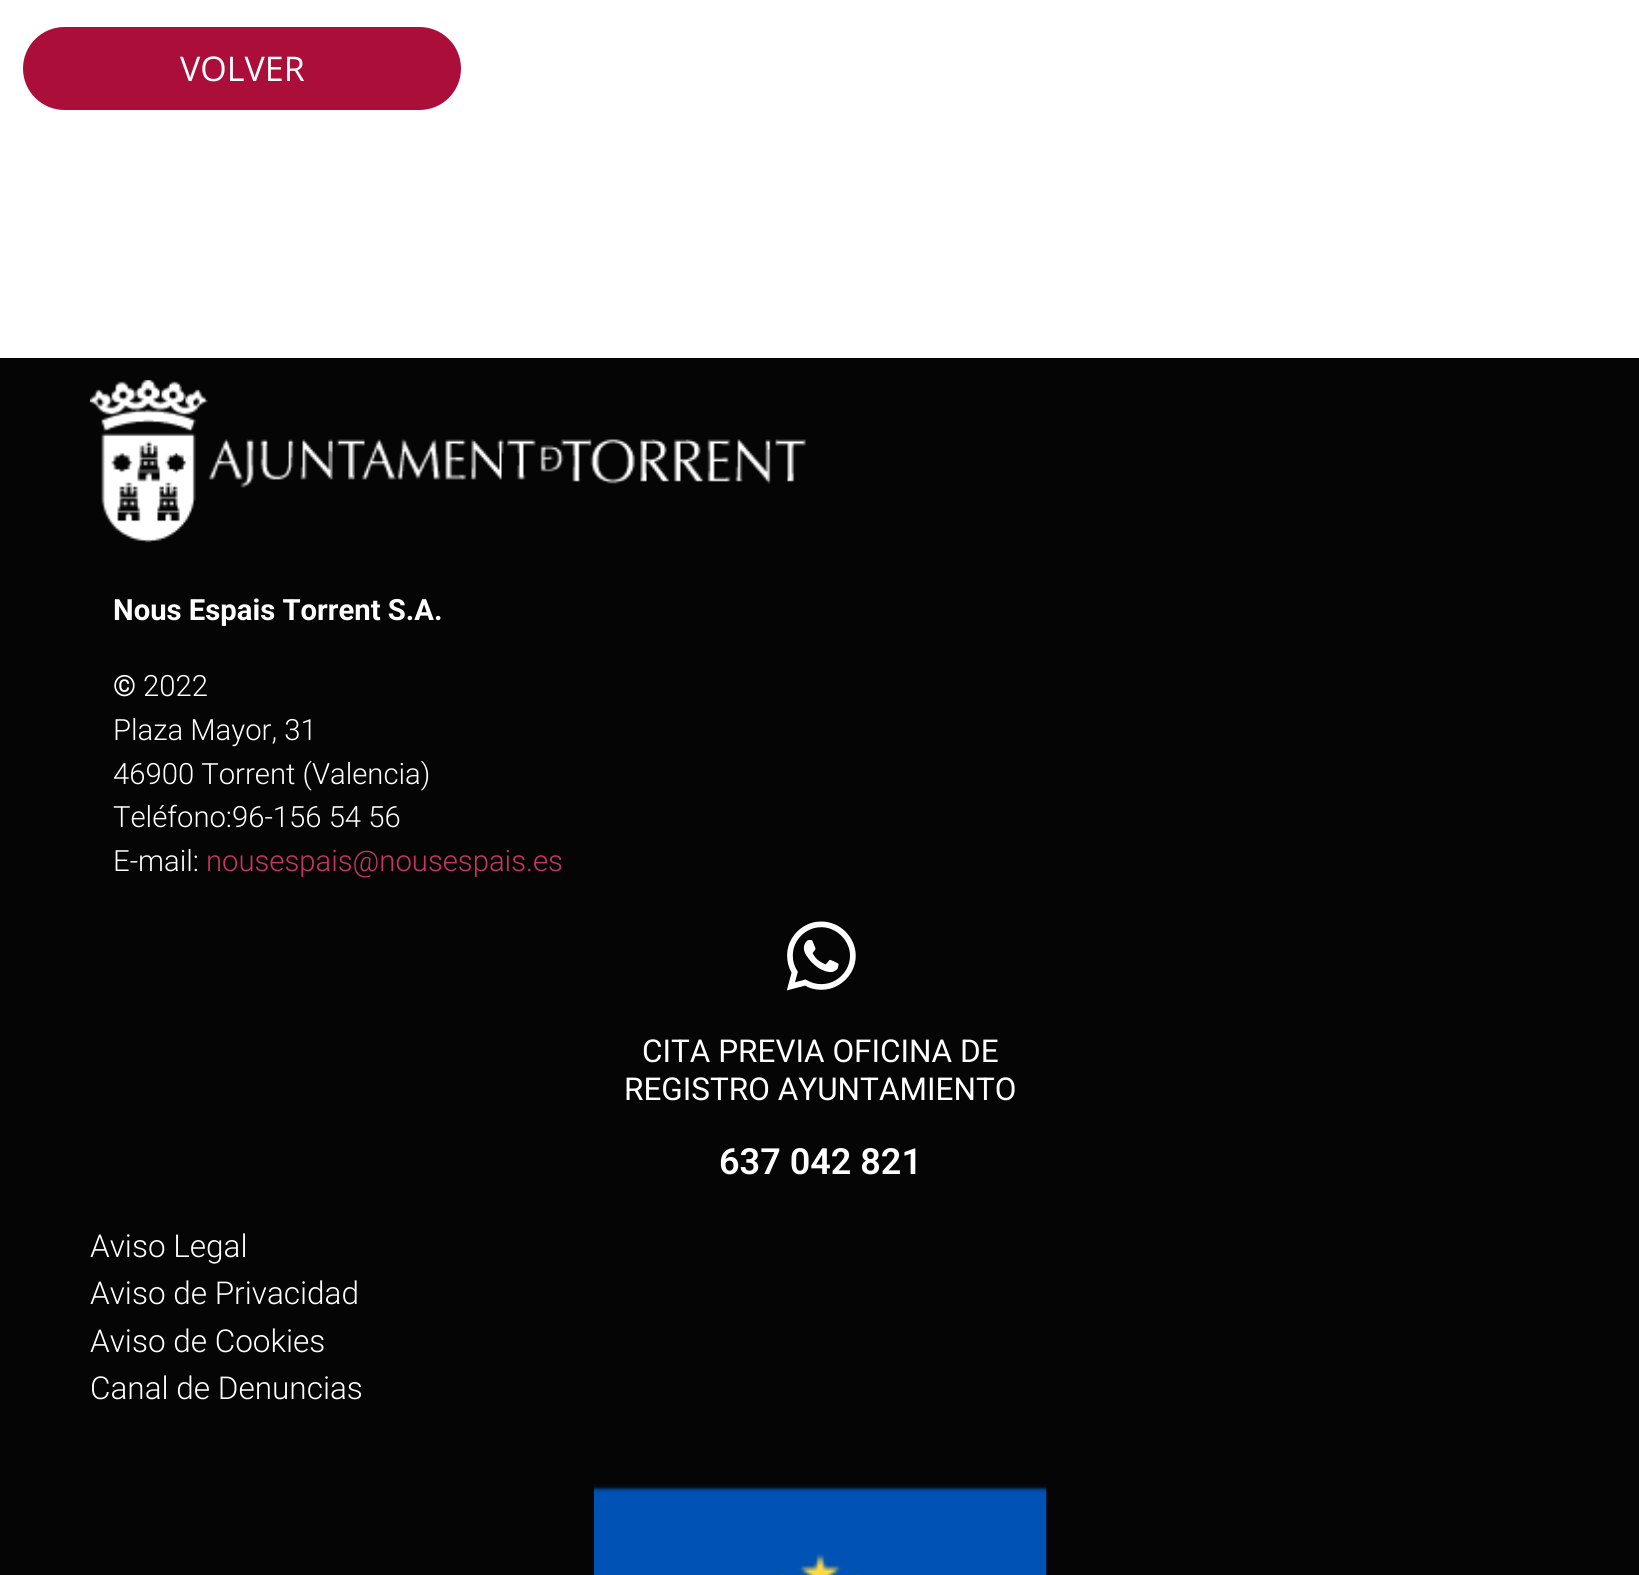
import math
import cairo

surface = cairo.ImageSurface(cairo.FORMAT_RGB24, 1639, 1575)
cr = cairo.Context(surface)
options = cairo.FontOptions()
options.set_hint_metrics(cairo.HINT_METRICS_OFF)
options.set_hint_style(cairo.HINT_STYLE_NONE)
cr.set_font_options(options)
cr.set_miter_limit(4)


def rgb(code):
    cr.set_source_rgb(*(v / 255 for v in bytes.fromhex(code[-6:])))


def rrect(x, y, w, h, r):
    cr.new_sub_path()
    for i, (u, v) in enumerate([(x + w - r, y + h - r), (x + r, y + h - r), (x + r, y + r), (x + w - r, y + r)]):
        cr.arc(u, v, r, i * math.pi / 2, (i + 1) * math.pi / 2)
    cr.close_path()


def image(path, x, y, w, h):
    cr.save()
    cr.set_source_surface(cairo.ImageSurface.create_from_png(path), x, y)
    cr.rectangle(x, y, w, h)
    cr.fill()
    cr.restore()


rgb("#ffffff")
cr.paint()
rgb("#ab0e39")
rrect(23, 27, 438, 83, 41.5)
cr.fill()
rgb("#050505")
cr.rectangle(0, 358, 1639, 1217)
cr.fill()
image("img/1.png", 90, 380, 716, 163)
image("img/2.png", 786, 921, 70, 70)
image("img/3.png", 594, 1485, 453, 90)
cr.select_font_face("Open Sans")
cr.set_font_size(34)
rgb("#ffffff")
cr.move_to(180, 81)
cr.show_text("VOLVER")
cr.select_font_face("Roboto", cairo.FONT_SLANT_NORMAL, cairo.FONT_WEIGHT_BOLD)
cr.set_font_size(29.25)
cr.move_to(113, 620)
cr.show_text("Nous Espais Torrent S.A.")
cr.select_font_face("Roboto")
cr.move_to(113, 696)
cr.show_text("©")
cr.select_font_face("Roboto Light")
for x, y, s in [
    (143, 696, "2022"),
    (113, 740, "Plaza Mayor, 31"),
    (113, 784, "46900 Torrent (Valencia)"),
    (113, 827, "Teléfono:96-156 54 56"),
    (113, 871, "E-mail:"),
]:
    cr.move_to(x, y)
    cr.show_text(s)
rgb("#cc3366")
cr.move_to(206, 871)
cr.show_text("nousespais@nousespais.es")
cr.select_font_face("Roboto")
cr.set_font_size(31.5)
rgb("#ffffff")
cr.move_to(642, 1062)
cr.show_text("CITA PREVIA OFICINA DE")
cr.move_to(624, 1100)
cr.show_text("REGISTRO AYUNTAMIENTO")
cr.select_font_face("Roboto SemiBold")
cr.set_font_size(36)
cr.move_to(719, 1174)
cr.show_text("637 042 821")
cr.select_font_face("Roboto Light")
cr.set_font_size(31.5)
for x, y, s in [
    (90, 1257, "Aviso Legal"),
    (90, 1304, "Aviso de Privacidad"),
    (90, 1352, "Aviso de Cookies"),
    (90, 1399, "Canal de Denuncias"),
]:
    cr.move_to(x, y)
    cr.show_text(s)
surface.write_to_png("page.png")
